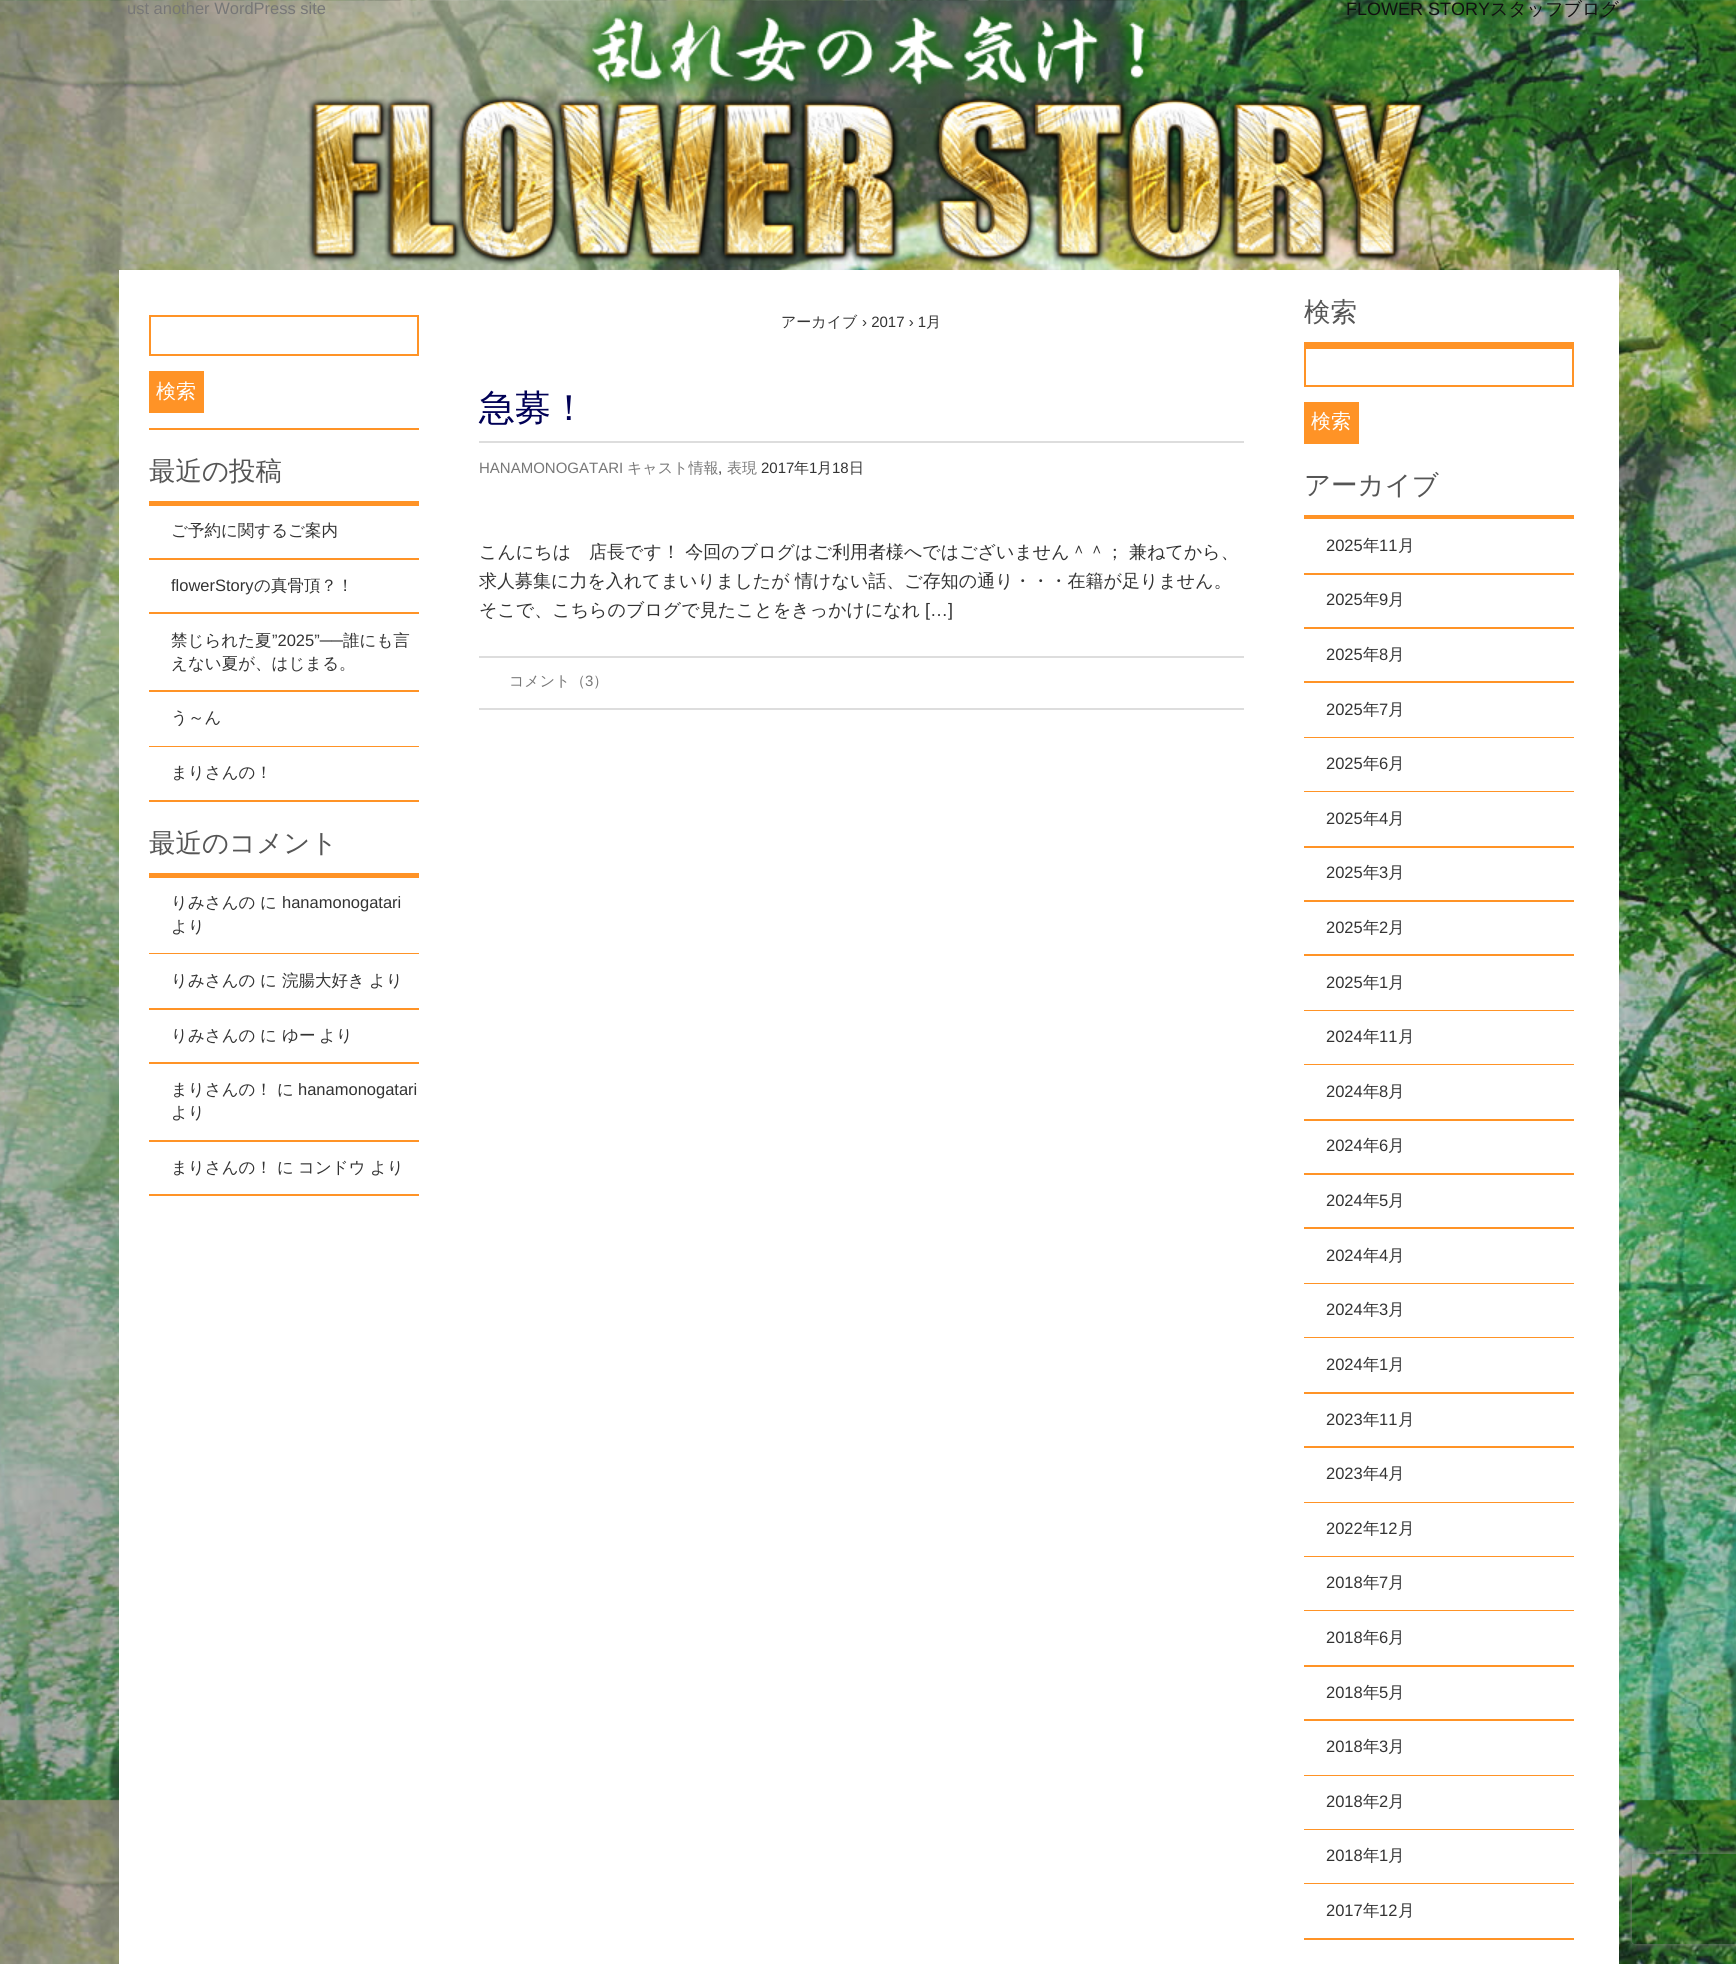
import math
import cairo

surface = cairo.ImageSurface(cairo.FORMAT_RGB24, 1736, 1964)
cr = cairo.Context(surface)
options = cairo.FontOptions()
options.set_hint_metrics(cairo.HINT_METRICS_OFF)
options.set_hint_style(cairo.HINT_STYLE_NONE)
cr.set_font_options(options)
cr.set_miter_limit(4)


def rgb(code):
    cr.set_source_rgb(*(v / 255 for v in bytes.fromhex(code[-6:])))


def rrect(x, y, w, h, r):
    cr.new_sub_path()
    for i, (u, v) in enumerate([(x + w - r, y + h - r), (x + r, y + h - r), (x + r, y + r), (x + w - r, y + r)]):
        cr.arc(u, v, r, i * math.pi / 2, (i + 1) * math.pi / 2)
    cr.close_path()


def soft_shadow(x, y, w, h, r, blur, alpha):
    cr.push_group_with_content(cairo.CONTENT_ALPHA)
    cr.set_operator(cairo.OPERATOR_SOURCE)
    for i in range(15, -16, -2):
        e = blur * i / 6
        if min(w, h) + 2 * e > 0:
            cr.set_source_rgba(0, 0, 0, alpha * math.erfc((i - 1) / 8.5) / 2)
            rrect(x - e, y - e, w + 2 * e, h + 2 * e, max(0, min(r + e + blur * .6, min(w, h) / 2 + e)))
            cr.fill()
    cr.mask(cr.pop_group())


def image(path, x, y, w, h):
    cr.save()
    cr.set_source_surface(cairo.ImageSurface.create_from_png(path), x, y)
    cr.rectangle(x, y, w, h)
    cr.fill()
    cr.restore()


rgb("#ffffff")
cr.paint()
image("img/1.png", 0, 0, 1736, 1964)
image("img/2.png", 307, 1, 1122, 265)
rgb("#ffffff")
cr.rectangle(119, 270, 1500, 1694)
cr.fill()
rgb("#ff9326")
cr.rectangle(149, 428, 270, 2)
cr.fill()
cr.rectangle(150, 316, 268, 39)
cr.stroke()
for x, y, w, h, color in [
    (149, 371, 55, 42, "#ff9326"),
    (149, 501, 270, 5, "#ff9326"),
    (149, 558, 270, 2, "#ff9326"),
    (149, 612, 270, 2, "#ff9326"),
    (149, 690, 270, 2, "#ff9326"),
    (149, 746, 270, 1, "#ff9326"),
    (149, 800, 270, 2, "#ff9326"),
    (149, 873, 270, 5, "#ff9326"),
    (149, 953, 270, 1, "#ff9326"),
    (149, 1008, 270, 2, "#ff9326"),
    (149, 1062, 270, 2, "#ff9326"),
    (149, 1140, 270, 2, "#ff9326"),
    (149, 1194, 270, 2, "#ff9326"),
    (479, 441, 765, 2, "#dddddd"),
    (479, 656, 765, 2, "#dddddd"),
    (479, 708, 765, 2, "#dddddd"),
    (1304, 342, 270, 5, "#ff9326"),
]:
    rgb(color)
    cr.rectangle(x, y, w, h)
    cr.fill()
cr.rectangle(1305, 348, 268, 38)
cr.stroke()
for x, y, w, h, color in [
    (1304, 402, 55, 42, "#ff9326"),
    (1304, 515, 270, 4, "#ff9326"),
    (1304, 573, 270, 2, "#ff9326"),
    (1304, 627, 270, 2, "#ff9326"),
    (1304, 681, 270, 2, "#ff9326"),
    (1304, 737, 270, 1, "#ff9326"),
    (1304, 791, 270, 1, "#ff9326"),
    (1304, 846, 270, 2, "#ff9326"),
    (1304, 900, 270, 2, "#ff9326"),
    (1304, 954, 270, 2, "#ff9326"),
    (1304, 1010, 270, 1, "#ff9326"),
    (1304, 1064, 270, 1, "#ff9326"),
    (1304, 1119, 270, 2, "#ff9326"),
    (1304, 1173, 270, 2, "#ff9326"),
    (1304, 1227, 270, 2, "#ff9326"),
    (1304, 1283, 270, 1, "#ff9326"),
    (1304, 1337, 270, 1, "#ff9326"),
    (1304, 1392, 270, 2, "#ff9326"),
    (1304, 1446, 270, 2, "#ff9326"),
    (1304, 1502, 270, 1, "#ff9326"),
    (1304, 1556, 270, 1, "#ff9326"),
    (1304, 1610, 270, 1, "#ff9326"),
    (1304, 1665, 270, 2, "#ff9326"),
    (1304, 1719, 270, 2, "#ff9326"),
    (1304, 1775, 270, 1, "#ff9326"),
    (1304, 1829, 270, 1, "#ff9326"),
    (1304, 1883, 270, 1, "#ff9326"),
    (1304, 1938, 270, 2, "#ff9326"),
]:
    rgb(color)
    cr.rectangle(x, y, w, h)
    cr.fill()
cr.save()
cr.set_fill_rule(cairo.FILL_RULE_EVEN_ODD)
cr.new_path()
cr.move_to(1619, 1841)
cr.line_to(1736, 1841)
cr.line_to(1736, 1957)
cr.line_to(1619, 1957)
cr.close_path()
cr.move_to(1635, 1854)
cr.line_to(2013, 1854)
cr.curve_to(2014.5, 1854, 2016, 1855.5, 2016, 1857)
cr.line_to(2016, 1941)
cr.curve_to(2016, 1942.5, 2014.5, 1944, 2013, 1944)
cr.line_to(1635, 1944)
cr.curve_to(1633.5, 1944, 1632, 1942.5, 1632, 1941)
cr.line_to(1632, 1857)
cr.curve_to(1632, 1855.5, 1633.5, 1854, 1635, 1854)
cr.close_path()
cr.clip()
rgb("#808080")
soft_shadow(1632, 1854, 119, 90, 3, 4, 1)
cr.restore()
cr.select_font_face("Liberation Sans")
cr.set_font_size(16.5)
rgb("#777777")
cr.move_to(127, 14)
cr.show_text("ust another WordPress site")
cr.set_font_size(18)
rgb("#111111")
cr.move_to(1346, 15)
cr.show_text("FLOWER STORY")
cr.select_font_face("WenQuanYi Zen Hei Medium")
cr.move_to(1490, 15)
cr.show_text("スタッフブログ")
cr.set_font_size(20)
rgb("#ffffff")
cr.move_to(156, 398)
cr.show_text("検索")
cr.set_font_size(26.5)
rgb("#555555")
cr.move_to(149, 480)
cr.show_text("最近の投稿")
cr.set_font_size(16.5)
rgb("#333333")
cr.move_to(171, 536)
cr.show_text("ご予約に関するご案内")
cr.select_font_face("Liberation Sans")
cr.move_to(171, 591)
cr.show_text("flowerStory")
cr.select_font_face("WenQuanYi Zen Hei Medium")
cr.move_to(254, 591)
cr.show_text("の真骨頂？！")
cr.move_to(171, 646)
cr.show_text("禁じられた夏")
cr.select_font_face("Liberation Sans")
cr.move_to(272, 646)
cr.show_text("”2025”──")
cr.select_font_face("WenQuanYi Zen Hei Medium")
for x, y, s in [
    (343, 646, "誰にも言"),
    (171, 669, "えない夏が、はじまる。"),
    (171, 723, "う～ん"),
    (171, 778, "まりさんの！"),
]:
    cr.move_to(x, y)
    cr.show_text(s)
cr.set_font_size(26.5)
rgb("#555555")
cr.move_to(149, 852)
cr.show_text("最近のコメント")
cr.set_font_size(16.5)
rgb("#333333")
cr.move_to(171, 908)
cr.show_text("りみさんの")
cr.move_to(260, 908)
cr.show_text("に")
cr.select_font_face("Liberation Sans")
cr.move_to(282, 908)
cr.show_text("hanamonogatari")
cr.select_font_face("WenQuanYi Zen Hei Medium")
for x, y, s in [
    (171, 932, "より"),
    (171, 986, "りみさんの"),
    (260, 986, "に"),
    (282, 986, "浣腸大好き"),
    (369, 986, "より"),
    (171, 1041, "りみさんの"),
    (260, 1041, "に"),
    (282, 1041, "ゆー"),
    (319, 1041, "より"),
    (171, 1095, "まりさんの！"),
    (277, 1095, "に"),
]:
    cr.move_to(x, y)
    cr.show_text(s)
cr.select_font_face("Liberation Sans")
cr.move_to(298, 1095)
cr.show_text("hanamonogatari")
cr.select_font_face("WenQuanYi Zen Hei Medium")
for x, y, s in [
    (171, 1118, "より"),
    (171, 1173, "まりさんの！"),
    (277, 1173, "に"),
    (298, 1173, "コンドウ"),
    (370, 1173, "より"),
]:
    cr.move_to(x, y)
    cr.show_text(s)
cr.set_font_size(15)
cr.move_to(781, 327)
cr.show_text("アーカイブ")
cr.select_font_face("Liberation Sans")
cr.move_to(862, 327)
cr.show_text("› 2017 › 1")
cr.select_font_face("WenQuanYi Zen Hei Medium")
cr.move_to(926, 327)
cr.show_text("月")
cr.set_font_size(36)
rgb("#000055")
cr.move_to(479, 420)
cr.show_text("急募！")
cr.select_font_face("Liberation Sans")
cr.set_font_size(15)
rgb("#777777")
cr.move_to(479, 473)
cr.show_text("HANAMONOGATARI")
cr.select_font_face("WenQuanYi Zen Hei Medium")
cr.move_to(627, 473)
cr.show_text("キャスト情報")
cr.select_font_face("Liberation Sans")
rgb("#333333")
cr.move_to(718, 473)
cr.show_text(",")
cr.select_font_face("WenQuanYi Zen Hei Medium")
rgb("#777777")
cr.move_to(727, 473)
cr.show_text("表現")
cr.select_font_face("Liberation Sans")
rgb("#333333")
cr.move_to(761, 473)
cr.show_text("2017")
cr.select_font_face("WenQuanYi Zen Hei Medium")
cr.move_to(794, 473)
cr.show_text("年")
cr.select_font_face("Liberation Sans")
cr.move_to(809, 473)
cr.show_text("1")
cr.select_font_face("WenQuanYi Zen Hei Medium")
cr.move_to(817, 473)
cr.show_text("月")
cr.select_font_face("Liberation Sans")
cr.move_to(832, 473)
cr.show_text("18")
cr.select_font_face("WenQuanYi Zen Hei Medium")
cr.move_to(849, 473)
cr.show_text("日")
cr.set_font_size(18)
for x, y, s in [
    (479, 558, "こんにちは　店長です！ 今回のブログはご利用者様へではございません＾＾； 兼ねてから、"),
    (479, 587, "求人募集に力を入れてまいりましたが 情けない話、ご存知の通り・・・在籍が足りません。"),
    (479, 616, "そこで、こちらのブログで見たことをきっかけになれ"),
]:
    cr.move_to(x, y)
    cr.show_text(s)
cr.select_font_face("Liberation Sans")
cr.move_to(925, 616)
cr.show_text("[…]")
cr.select_font_face("WenQuanYi Zen Hei Medium")
cr.set_font_size(15)
rgb("#777777")
cr.move_to(509, 686)
cr.show_text("コメント（")
cr.select_font_face("Liberation Sans")
cr.move_to(585, 686)
cr.show_text("3")
cr.select_font_face("WenQuanYi Zen Hei Medium")
cr.move_to(593, 686)
cr.show_text("）")
cr.set_font_size(26.5)
rgb("#555555")
cr.move_to(1304, 321)
cr.show_text("検索")
cr.set_font_size(20)
rgb("#ffffff")
cr.move_to(1311, 428)
cr.show_text("検索")
cr.set_font_size(26.5)
rgb("#555555")
cr.move_to(1304, 494)
cr.show_text("アーカイブ")
cr.select_font_face("Liberation Sans")
cr.set_font_size(16.5)
rgb("#333333")
cr.move_to(1326, 551)
cr.show_text("2025")
cr.select_font_face("WenQuanYi Zen Hei Medium")
cr.move_to(1363, 551)
cr.show_text("年")
cr.select_font_face("Liberation Sans")
cr.move_to(1379, 551)
cr.show_text("11")
cr.select_font_face("WenQuanYi Zen Hei Medium")
cr.move_to(1398, 551)
cr.show_text("月")
cr.select_font_face("Liberation Sans")
cr.move_to(1326, 605)
cr.show_text("2025")
cr.select_font_face("WenQuanYi Zen Hei Medium")
cr.move_to(1363, 605)
cr.show_text("年")
cr.select_font_face("Liberation Sans")
cr.move_to(1379, 605)
cr.show_text("9")
cr.select_font_face("WenQuanYi Zen Hei Medium")
cr.move_to(1388, 605)
cr.show_text("月")
cr.select_font_face("Liberation Sans")
cr.move_to(1326, 660)
cr.show_text("2025")
cr.select_font_face("WenQuanYi Zen Hei Medium")
cr.move_to(1363, 660)
cr.show_text("年")
cr.select_font_face("Liberation Sans")
cr.move_to(1379, 660)
cr.show_text("8")
cr.select_font_face("WenQuanYi Zen Hei Medium")
cr.move_to(1388, 660)
cr.show_text("月")
cr.select_font_face("Liberation Sans")
cr.move_to(1326, 715)
cr.show_text("2025")
cr.select_font_face("WenQuanYi Zen Hei Medium")
cr.move_to(1363, 715)
cr.show_text("年")
cr.select_font_face("Liberation Sans")
cr.move_to(1379, 715)
cr.show_text("7")
cr.select_font_face("WenQuanYi Zen Hei Medium")
cr.move_to(1388, 715)
cr.show_text("月")
cr.select_font_face("Liberation Sans")
cr.move_to(1326, 769)
cr.show_text("2025")
cr.select_font_face("WenQuanYi Zen Hei Medium")
cr.move_to(1363, 769)
cr.show_text("年")
cr.select_font_face("Liberation Sans")
cr.move_to(1379, 769)
cr.show_text("6")
cr.select_font_face("WenQuanYi Zen Hei Medium")
cr.move_to(1388, 769)
cr.show_text("月")
cr.select_font_face("Liberation Sans")
cr.move_to(1326, 824)
cr.show_text("2025")
cr.select_font_face("WenQuanYi Zen Hei Medium")
cr.move_to(1363, 824)
cr.show_text("年")
cr.select_font_face("Liberation Sans")
cr.move_to(1379, 824)
cr.show_text("4")
cr.select_font_face("WenQuanYi Zen Hei Medium")
cr.move_to(1388, 824)
cr.show_text("月")
cr.select_font_face("Liberation Sans")
cr.move_to(1326, 878)
cr.show_text("2025")
cr.select_font_face("WenQuanYi Zen Hei Medium")
cr.move_to(1363, 878)
cr.show_text("年")
cr.select_font_face("Liberation Sans")
cr.move_to(1379, 878)
cr.show_text("3")
cr.select_font_face("WenQuanYi Zen Hei Medium")
cr.move_to(1388, 878)
cr.show_text("月")
cr.select_font_face("Liberation Sans")
cr.move_to(1326, 933)
cr.show_text("2025")
cr.select_font_face("WenQuanYi Zen Hei Medium")
cr.move_to(1363, 933)
cr.show_text("年")
cr.select_font_face("Liberation Sans")
cr.move_to(1379, 933)
cr.show_text("2")
cr.select_font_face("WenQuanYi Zen Hei Medium")
cr.move_to(1388, 933)
cr.show_text("月")
cr.select_font_face("Liberation Sans")
cr.move_to(1326, 988)
cr.show_text("2025")
cr.select_font_face("WenQuanYi Zen Hei Medium")
cr.move_to(1363, 988)
cr.show_text("年")
cr.select_font_face("Liberation Sans")
cr.move_to(1379, 988)
cr.show_text("1")
cr.select_font_face("WenQuanYi Zen Hei Medium")
cr.move_to(1388, 988)
cr.show_text("月")
cr.select_font_face("Liberation Sans")
cr.move_to(1326, 1042)
cr.show_text("2024")
cr.select_font_face("WenQuanYi Zen Hei Medium")
cr.move_to(1363, 1042)
cr.show_text("年")
cr.select_font_face("Liberation Sans")
cr.move_to(1379, 1042)
cr.show_text("11")
cr.select_font_face("WenQuanYi Zen Hei Medium")
cr.move_to(1398, 1042)
cr.show_text("月")
cr.select_font_face("Liberation Sans")
cr.move_to(1326, 1097)
cr.show_text("2024")
cr.select_font_face("WenQuanYi Zen Hei Medium")
cr.move_to(1363, 1097)
cr.show_text("年")
cr.select_font_face("Liberation Sans")
cr.move_to(1379, 1097)
cr.show_text("8")
cr.select_font_face("WenQuanYi Zen Hei Medium")
cr.move_to(1388, 1097)
cr.show_text("月")
cr.select_font_face("Liberation Sans")
cr.move_to(1326, 1151)
cr.show_text("2024")
cr.select_font_face("WenQuanYi Zen Hei Medium")
cr.move_to(1363, 1151)
cr.show_text("年")
cr.select_font_face("Liberation Sans")
cr.move_to(1379, 1151)
cr.show_text("6")
cr.select_font_face("WenQuanYi Zen Hei Medium")
cr.move_to(1388, 1151)
cr.show_text("月")
cr.select_font_face("Liberation Sans")
cr.move_to(1326, 1206)
cr.show_text("2024")
cr.select_font_face("WenQuanYi Zen Hei Medium")
cr.move_to(1363, 1206)
cr.show_text("年")
cr.select_font_face("Liberation Sans")
cr.move_to(1379, 1206)
cr.show_text("5")
cr.select_font_face("WenQuanYi Zen Hei Medium")
cr.move_to(1388, 1206)
cr.show_text("月")
cr.select_font_face("Liberation Sans")
cr.move_to(1326, 1261)
cr.show_text("2024")
cr.select_font_face("WenQuanYi Zen Hei Medium")
cr.move_to(1363, 1261)
cr.show_text("年")
cr.select_font_face("Liberation Sans")
cr.move_to(1379, 1261)
cr.show_text("4")
cr.select_font_face("WenQuanYi Zen Hei Medium")
cr.move_to(1388, 1261)
cr.show_text("月")
cr.select_font_face("Liberation Sans")
cr.move_to(1326, 1315)
cr.show_text("2024")
cr.select_font_face("WenQuanYi Zen Hei Medium")
cr.move_to(1363, 1315)
cr.show_text("年")
cr.select_font_face("Liberation Sans")
cr.move_to(1379, 1315)
cr.show_text("3")
cr.select_font_face("WenQuanYi Zen Hei Medium")
cr.move_to(1388, 1315)
cr.show_text("月")
cr.select_font_face("Liberation Sans")
cr.move_to(1326, 1370)
cr.show_text("2024")
cr.select_font_face("WenQuanYi Zen Hei Medium")
cr.move_to(1363, 1370)
cr.show_text("年")
cr.select_font_face("Liberation Sans")
cr.move_to(1379, 1370)
cr.show_text("1")
cr.select_font_face("WenQuanYi Zen Hei Medium")
cr.move_to(1388, 1370)
cr.show_text("月")
cr.select_font_face("Liberation Sans")
cr.move_to(1326, 1425)
cr.show_text("2023")
cr.select_font_face("WenQuanYi Zen Hei Medium")
cr.move_to(1363, 1425)
cr.show_text("年")
cr.select_font_face("Liberation Sans")
cr.move_to(1379, 1425)
cr.show_text("11")
cr.select_font_face("WenQuanYi Zen Hei Medium")
cr.move_to(1398, 1425)
cr.show_text("月")
cr.select_font_face("Liberation Sans")
cr.move_to(1326, 1479)
cr.show_text("2023")
cr.select_font_face("WenQuanYi Zen Hei Medium")
cr.move_to(1363, 1479)
cr.show_text("年")
cr.select_font_face("Liberation Sans")
cr.move_to(1379, 1479)
cr.show_text("4")
cr.select_font_face("WenQuanYi Zen Hei Medium")
cr.move_to(1388, 1479)
cr.show_text("月")
cr.select_font_face("Liberation Sans")
cr.move_to(1326, 1534)
cr.show_text("2022")
cr.select_font_face("WenQuanYi Zen Hei Medium")
cr.move_to(1363, 1534)
cr.show_text("年")
cr.select_font_face("Liberation Sans")
cr.move_to(1379, 1534)
cr.show_text("12")
cr.select_font_face("WenQuanYi Zen Hei Medium")
cr.move_to(1398, 1534)
cr.show_text("月")
cr.select_font_face("Liberation Sans")
cr.move_to(1326, 1588)
cr.show_text("2018")
cr.select_font_face("WenQuanYi Zen Hei Medium")
cr.move_to(1363, 1588)
cr.show_text("年")
cr.select_font_face("Liberation Sans")
cr.move_to(1379, 1588)
cr.show_text("7")
cr.select_font_face("WenQuanYi Zen Hei Medium")
cr.move_to(1388, 1588)
cr.show_text("月")
cr.select_font_face("Liberation Sans")
cr.move_to(1326, 1643)
cr.show_text("2018")
cr.select_font_face("WenQuanYi Zen Hei Medium")
cr.move_to(1363, 1643)
cr.show_text("年")
cr.select_font_face("Liberation Sans")
cr.move_to(1379, 1643)
cr.show_text("6")
cr.select_font_face("WenQuanYi Zen Hei Medium")
cr.move_to(1388, 1643)
cr.show_text("月")
cr.select_font_face("Liberation Sans")
cr.move_to(1326, 1698)
cr.show_text("2018")
cr.select_font_face("WenQuanYi Zen Hei Medium")
cr.move_to(1363, 1698)
cr.show_text("年")
cr.select_font_face("Liberation Sans")
cr.move_to(1379, 1698)
cr.show_text("5")
cr.select_font_face("WenQuanYi Zen Hei Medium")
cr.move_to(1388, 1698)
cr.show_text("月")
cr.select_font_face("Liberation Sans")
cr.move_to(1326, 1752)
cr.show_text("2018")
cr.select_font_face("WenQuanYi Zen Hei Medium")
cr.move_to(1363, 1752)
cr.show_text("年")
cr.select_font_face("Liberation Sans")
cr.move_to(1379, 1752)
cr.show_text("3")
cr.select_font_face("WenQuanYi Zen Hei Medium")
cr.move_to(1388, 1752)
cr.show_text("月")
cr.select_font_face("Liberation Sans")
cr.move_to(1326, 1807)
cr.show_text("2018")
cr.select_font_face("WenQuanYi Zen Hei Medium")
cr.move_to(1363, 1807)
cr.show_text("年")
cr.select_font_face("Liberation Sans")
cr.move_to(1379, 1807)
cr.show_text("2")
cr.select_font_face("WenQuanYi Zen Hei Medium")
cr.move_to(1388, 1807)
cr.show_text("月")
cr.select_font_face("Liberation Sans")
cr.move_to(1326, 1861)
cr.show_text("2018")
cr.select_font_face("WenQuanYi Zen Hei Medium")
cr.move_to(1363, 1861)
cr.show_text("年")
cr.select_font_face("Liberation Sans")
cr.move_to(1379, 1861)
cr.show_text("1")
cr.select_font_face("WenQuanYi Zen Hei Medium")
cr.move_to(1388, 1861)
cr.show_text("月")
cr.select_font_face("Liberation Sans")
cr.move_to(1326, 1916)
cr.show_text("2017")
cr.select_font_face("WenQuanYi Zen Hei Medium")
cr.move_to(1363, 1916)
cr.show_text("年")
cr.select_font_face("Liberation Sans")
cr.move_to(1379, 1916)
cr.show_text("12")
cr.select_font_face("WenQuanYi Zen Hei Medium")
cr.move_to(1398, 1916)
cr.show_text("月")
surface.write_to_png("page.png")
